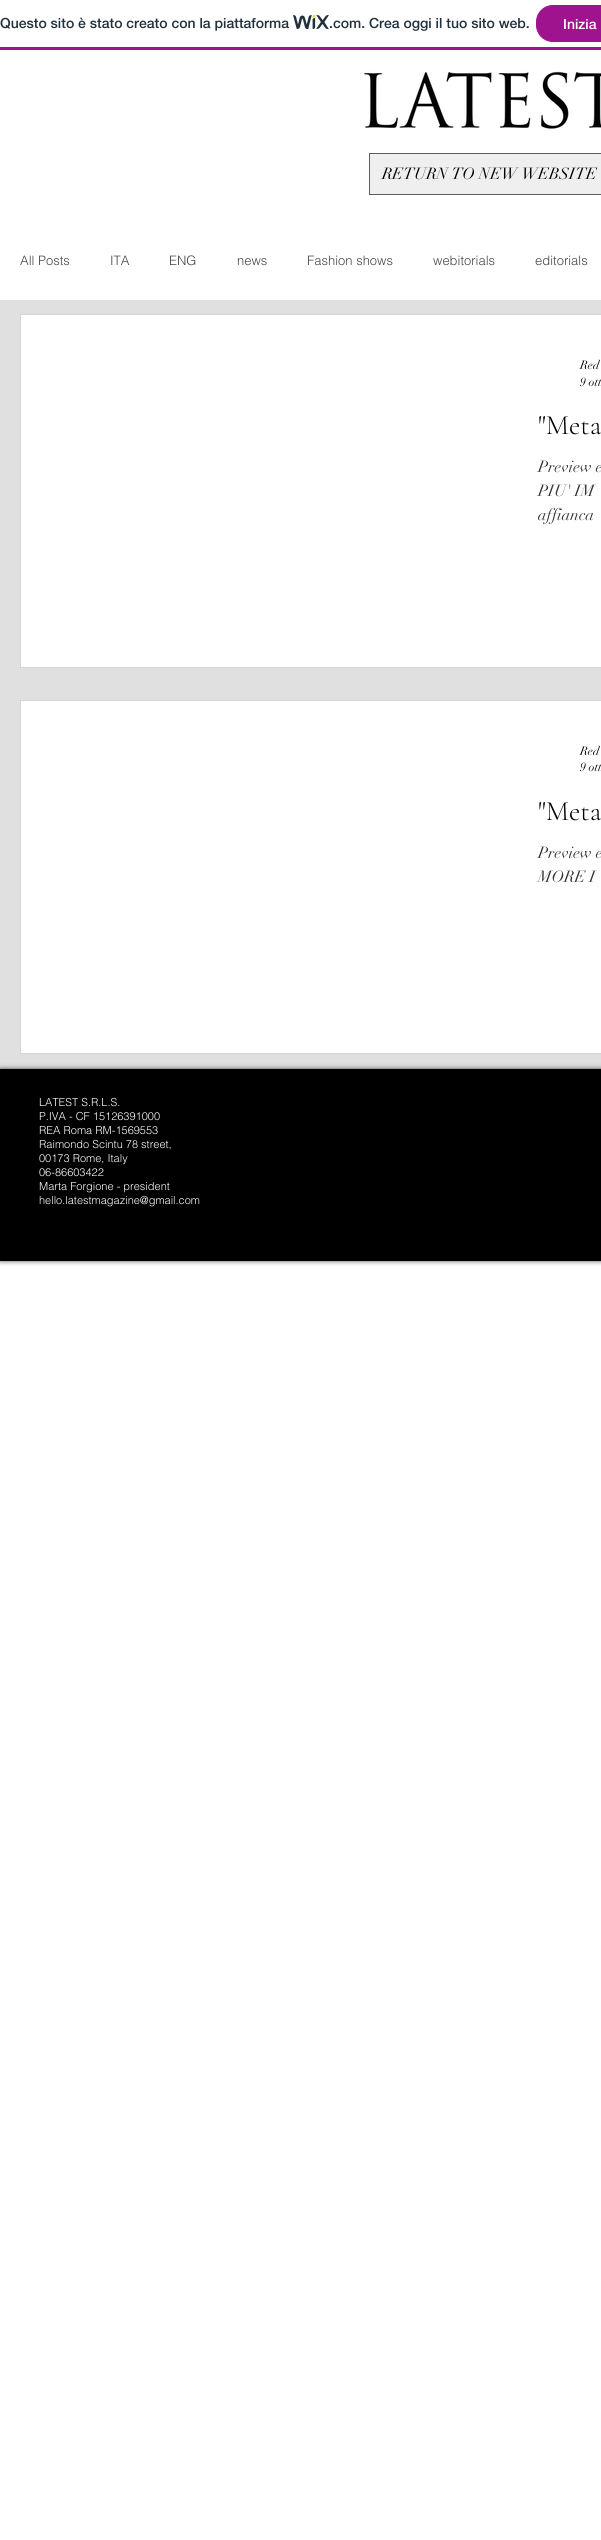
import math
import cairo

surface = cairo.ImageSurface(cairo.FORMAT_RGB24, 601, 2540)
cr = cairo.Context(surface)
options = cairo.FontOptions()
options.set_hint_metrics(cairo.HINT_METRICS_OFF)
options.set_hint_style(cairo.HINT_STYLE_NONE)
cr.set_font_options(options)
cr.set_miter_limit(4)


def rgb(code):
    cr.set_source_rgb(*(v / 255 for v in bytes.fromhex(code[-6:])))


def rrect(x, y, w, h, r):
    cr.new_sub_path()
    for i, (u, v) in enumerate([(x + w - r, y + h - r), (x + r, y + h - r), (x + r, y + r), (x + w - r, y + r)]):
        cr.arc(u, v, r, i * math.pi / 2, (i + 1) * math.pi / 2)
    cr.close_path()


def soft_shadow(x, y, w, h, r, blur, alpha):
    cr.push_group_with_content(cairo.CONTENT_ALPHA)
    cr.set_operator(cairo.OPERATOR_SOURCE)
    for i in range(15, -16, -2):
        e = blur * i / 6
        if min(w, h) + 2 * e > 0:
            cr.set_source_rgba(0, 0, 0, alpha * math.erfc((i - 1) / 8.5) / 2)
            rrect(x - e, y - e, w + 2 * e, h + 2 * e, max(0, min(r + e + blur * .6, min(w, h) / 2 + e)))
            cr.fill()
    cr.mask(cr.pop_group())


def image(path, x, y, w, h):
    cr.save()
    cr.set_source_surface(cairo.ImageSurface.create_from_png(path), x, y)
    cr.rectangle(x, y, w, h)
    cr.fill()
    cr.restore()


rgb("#ffffff")
cr.paint()
rgb("#a0138e")
cr.rectangle(0, 47, 601, 3)
cr.fill()
image("img/1.png", 293, 15, 36, 15)
rrect(536.5, 5.5, 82, 36, 16.5)
cr.fill_preserve()
cr.set_line_width(1)
cr.stroke()
image("img/2.png", 364, 71, 237, 58)
rgb("#efefef")
cr.rectangle(369.5, 153.5, 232, 41)
cr.fill_preserve()
rgb("#5f5e5d")
cr.stroke()
rgb("#e0e0e0")
cr.rectangle(0, 300, 601, 769)
cr.fill()
rgb("#ffffff")
cr.rectangle(20.5, 314.5, 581, 353)
cr.fill_preserve()
rgb("#d4d4d4")
cr.stroke()
rgb("#ffffff")
cr.rectangle(20.5, 700.5, 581, 353)
cr.fill_preserve()
rgb("#d4d4d4")
cr.stroke()
rgb("#000000")
soft_shadow(0, 1069, 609, 192, 0, 2.5, 0.7)
rgb("#000000")
cr.rectangle(0, 1069, 601, 192)
cr.fill()
cr.select_font_face("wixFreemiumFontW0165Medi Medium")
cr.set_font_size(14)
rgb("#20303c")
cr.move_to(0, 28)
cr.show_text("Questo sito è stato creato con la piattaforma")
cr.move_to(329, 28)
cr.show_text(".com. Crea oggi il tuo sito web.")
rgb("#ffffff")
cr.move_to(563, 29)
cr.show_text("Inizia")
cr.select_font_face("didot")
cr.set_font_size(16)
rgb("#000000")
cr.move_to(382, 179)
cr.show_text("RETURN TO NEW WEBSITE")
cr.select_font_face("helvetica Light")
cr.set_font_size(13)
rgb("#454545")
for x, y, s in [
    (20, 265, "All Posts"),
    (110, 265, "ITA"),
    (169, 265, "ENG"),
    (237, 265, "news"),
    (307, 265, "Fashion shows"),
    (433, 265, "webitorials"),
    (535, 265, "editorials"),
]:
    cr.move_to(x, y)
    cr.show_text(s)
cr.select_font_face("didot")
cr.set_font_size(12)
rgb("#000000")
cr.move_to(580, 369)
cr.show_text("Red")
cr.move_to(580, 386)
cr.show_text("9 ott")
cr.select_font_face("Cormorant Garamond Light")
cr.set_font_size(28)
cr.move_to(538, 434)
cr.show_text("\"Meta")
cr.select_font_face("didot")
cr.set_font_size(16)
rgb("#333333")
for x, y, s in [
    (538, 472, "Preview e"),
    (538, 496, "PIU' IM"),
    (538, 520, "affianca"),
]:
    cr.move_to(x, y)
    cr.show_text(s)
cr.set_font_size(12)
rgb("#000000")
cr.move_to(580, 755)
cr.show_text("Red")
cr.move_to(580, 771)
cr.show_text("9 ott")
cr.select_font_face("Cormorant Garamond Light")
cr.set_font_size(28)
cr.move_to(538, 820)
cr.show_text("\"Meta")
cr.select_font_face("didot")
cr.set_font_size(16)
rgb("#333333")
cr.move_to(538, 858)
cr.show_text("Preview e")
cr.move_to(538, 882)
cr.show_text("MORE I")
cr.select_font_face("helvetica Light")
cr.set_font_size(11)
rgb("#ffffff")
for x, y, s in [
    (39, 1106, "LATEST S.R.L.S."),
    (39, 1120, "P.IVA - CF 15126391000"),
    (39, 1134, "REA Roma RM-1569553"),
    (39, 1148, "Raimondo Scintu 78 street,"),
    (39, 1162, "00173 Rome, Italy"),
    (39, 1176, "06-86603422"),
    (39, 1190, "Marta Forgione - president"),
    (39, 1204, "hello.latestmagazine@gmail.com"),
]:
    cr.move_to(x, y)
    cr.show_text(s)
surface.write_to_png("page.png")
